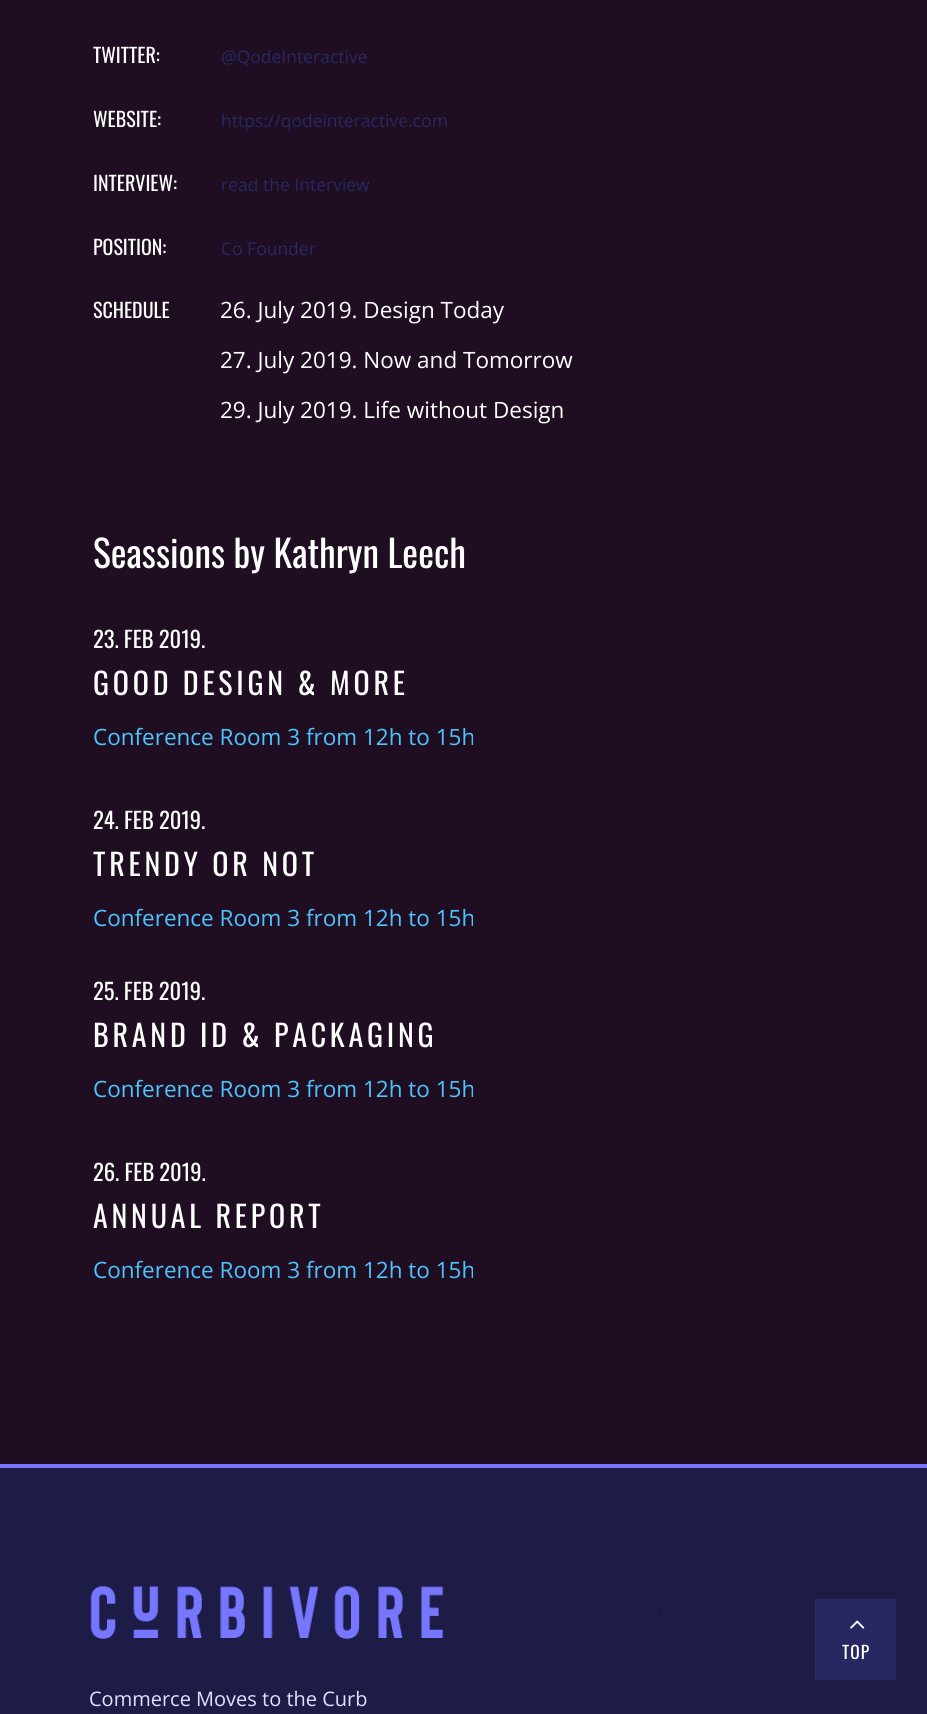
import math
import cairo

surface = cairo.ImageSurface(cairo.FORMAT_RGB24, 927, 1714)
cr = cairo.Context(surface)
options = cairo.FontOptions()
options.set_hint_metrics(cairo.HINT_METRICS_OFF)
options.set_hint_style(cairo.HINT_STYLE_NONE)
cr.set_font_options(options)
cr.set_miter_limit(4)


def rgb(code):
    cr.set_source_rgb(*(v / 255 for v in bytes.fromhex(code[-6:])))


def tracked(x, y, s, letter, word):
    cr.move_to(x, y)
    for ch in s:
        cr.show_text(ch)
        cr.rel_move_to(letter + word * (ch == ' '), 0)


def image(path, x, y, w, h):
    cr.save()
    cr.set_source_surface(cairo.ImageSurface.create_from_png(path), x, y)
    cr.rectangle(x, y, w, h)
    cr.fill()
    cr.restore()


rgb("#1f0e21")
cr.paint()
rgb("#1c1c47")
cr.rectangle(0, 1468, 927, 246)
cr.fill()
rgb("#282762")
cr.rectangle(815, 1599, 81, 81)
cr.fill()
image("img/1.png", 850, 1620, 15, 9)
rgb("#7676ff")
cr.rectangle(0, 1464, 927, 4)
cr.fill()
rgb("#080108")
cr.rectangle(660, 1610, 1, 1)
cr.fill()
image("img/2.png", 90, 1586, 354, 53)
cr.select_font_face("Oswald")
cr.set_font_size(20)
rgb("#ffffff")
cr.move_to(93, 63)
cr.show_text("TWITTER:")
cr.select_font_face("Open Sans")
cr.set_font_size(17.5)
rgb("#282762")
cr.move_to(221, 63)
cr.show_text("@QodeInteractive")
cr.select_font_face("Oswald")
cr.set_font_size(20)
rgb("#ffffff")
cr.move_to(93, 127)
cr.show_text("WEBSITE:")
cr.select_font_face("Open Sans")
cr.set_font_size(17.5)
rgb("#282762")
cr.move_to(221, 127)
cr.show_text("https://qodeinteractive.com")
cr.select_font_face("Oswald")
cr.set_font_size(20)
rgb("#ffffff")
cr.move_to(93, 191)
cr.show_text("INTERVIEW:")
cr.select_font_face("Open Sans")
cr.set_font_size(17.5)
rgb("#282762")
cr.move_to(221, 191)
cr.show_text("read the Interview")
cr.select_font_face("Oswald")
cr.set_font_size(20)
rgb("#ffffff")
cr.move_to(93, 255)
cr.show_text("POSITION:")
cr.select_font_face("Open Sans")
cr.set_font_size(17.5)
rgb("#282762")
cr.move_to(221, 255)
cr.show_text("Co Founder")
cr.select_font_face("Oswald")
cr.set_font_size(20)
rgb("#ffffff")
cr.move_to(93, 318)
cr.show_text("SCHEDULE")
cr.select_font_face("Open Sans")
cr.set_font_size(22.5)
for x, y, s in [
    (220, 318, "26. July 2019. Design Today"),
    (220, 368, "27. July 2019. Now and Tomorrow"),
    (220, 418, "29. July 2019. Life without Design"),
]:
    cr.move_to(x, y)
    cr.show_text(s)
cr.select_font_face("Oswald")
cr.set_font_size(37.5)
cr.move_to(93, 568)
cr.show_text("Seassions by Kathryn Leech")
cr.set_font_size(22.5)
cr.move_to(93, 648)
cr.show_text("23. FEB 2019.")
cr.set_font_size(30)
tracked(93, 695, "GOOD DESIGN & MORE", 3.75, 0)
cr.select_font_face("Open Sans")
cr.set_font_size(22.5)
rgb("#4ec4ff")
cr.move_to(93, 745)
cr.show_text("Conference Room 3 from 12h to 15h")
cr.select_font_face("Oswald")
rgb("#ffffff")
cr.move_to(93, 829)
cr.show_text("24. FEB 2019.")
cr.set_font_size(30)
tracked(93, 876, "TRENDY OR NOT", 3.75, 0)
cr.select_font_face("Open Sans")
cr.set_font_size(22.5)
rgb("#4ec4ff")
cr.move_to(93, 926)
cr.show_text("Conference Room 3 from 12h to 15h")
cr.select_font_face("Oswald")
rgb("#ffffff")
cr.move_to(93, 1000)
cr.show_text("25. FEB 2019.")
cr.set_font_size(30)
tracked(93, 1047, "BRAND ID & PACKAGING", 3.75, 0)
cr.select_font_face("Open Sans")
cr.set_font_size(22.5)
rgb("#4ec4ff")
cr.move_to(93, 1097)
cr.show_text("Conference Room 3 from 12h to 15h")
cr.select_font_face("Oswald")
rgb("#ffffff")
cr.move_to(93, 1181)
cr.show_text("26. FEB 2019.")
cr.set_font_size(30)
tracked(93, 1228, "ANNUAL REPORT", 3.75, 0)
cr.select_font_face("Open Sans")
cr.set_font_size(22.5)
rgb("#4ec4ff")
cr.move_to(93, 1278)
cr.show_text("Conference Room 3 from 12h to 15h")
cr.select_font_face("Oswald")
cr.set_font_size(17.5)
rgb("#ffffff")
tracked(842, 1659, "TOP", 1, 0)
cr.select_font_face("Open Sans")
cr.set_font_size(20)
rgb("#e1e1ff")
cr.move_to(89, 1706)
cr.show_text("Commerce Moves to the Curb")
surface.write_to_png("page.png")
